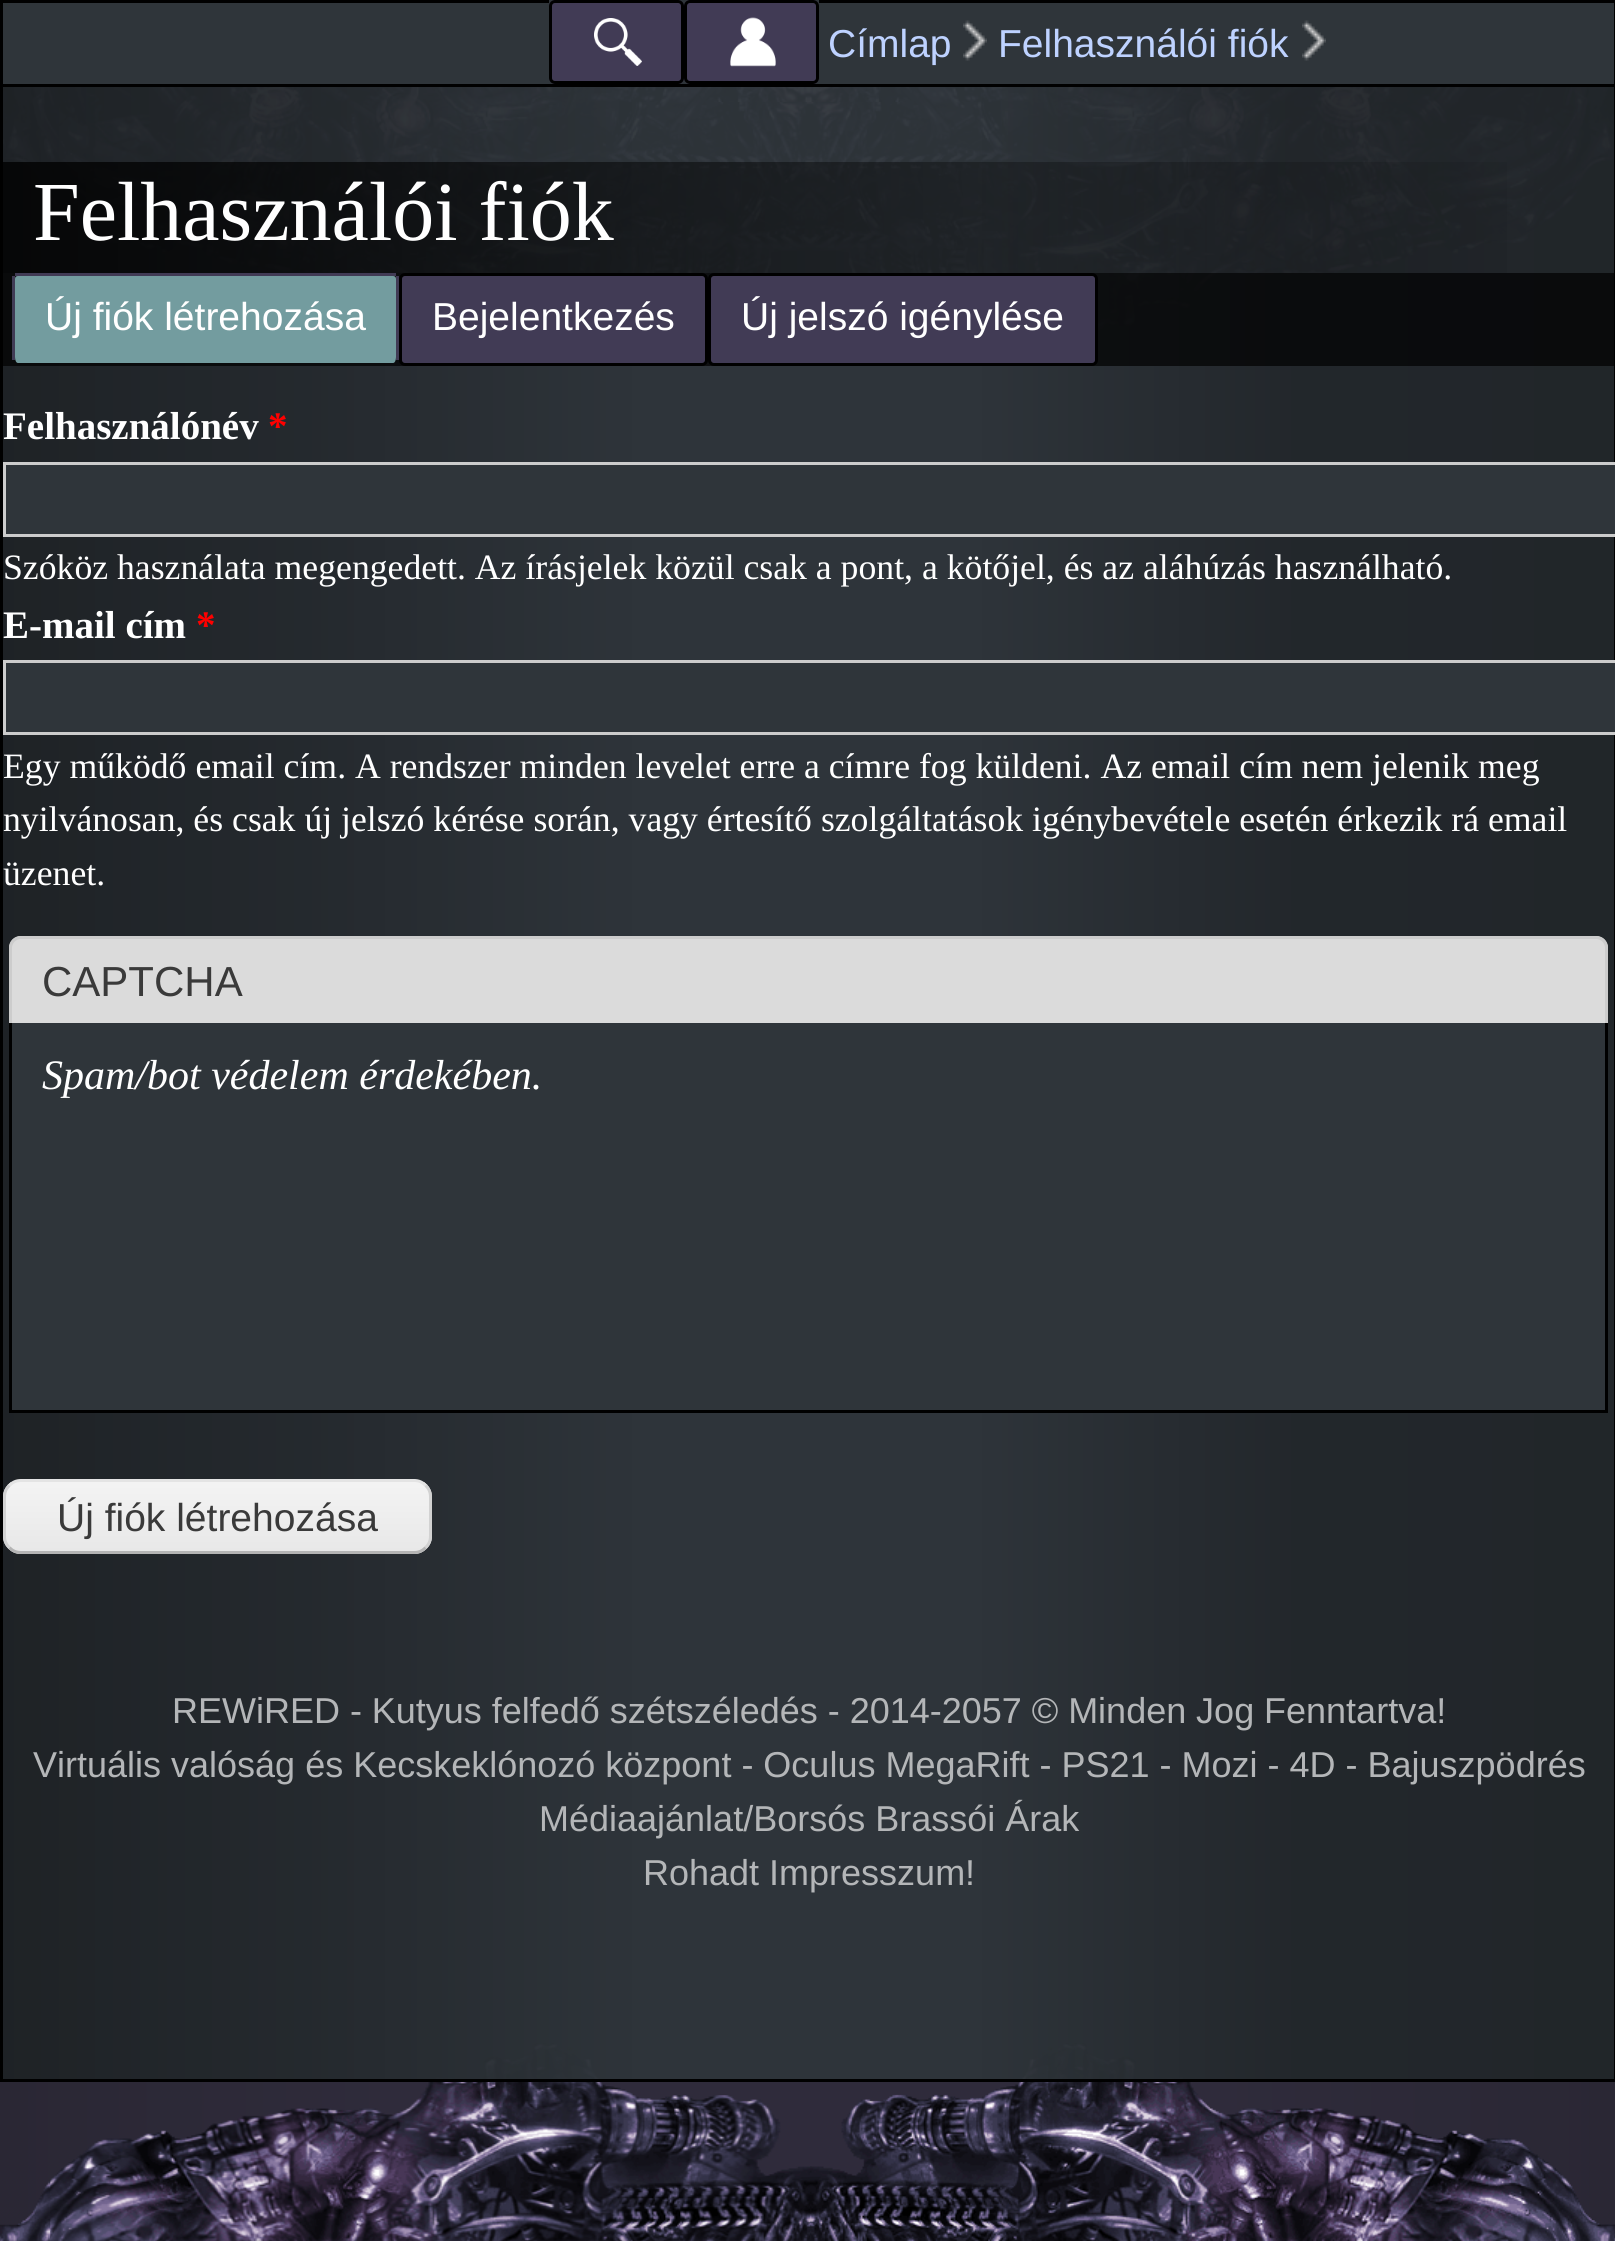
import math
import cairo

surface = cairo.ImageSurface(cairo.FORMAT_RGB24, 1615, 2241)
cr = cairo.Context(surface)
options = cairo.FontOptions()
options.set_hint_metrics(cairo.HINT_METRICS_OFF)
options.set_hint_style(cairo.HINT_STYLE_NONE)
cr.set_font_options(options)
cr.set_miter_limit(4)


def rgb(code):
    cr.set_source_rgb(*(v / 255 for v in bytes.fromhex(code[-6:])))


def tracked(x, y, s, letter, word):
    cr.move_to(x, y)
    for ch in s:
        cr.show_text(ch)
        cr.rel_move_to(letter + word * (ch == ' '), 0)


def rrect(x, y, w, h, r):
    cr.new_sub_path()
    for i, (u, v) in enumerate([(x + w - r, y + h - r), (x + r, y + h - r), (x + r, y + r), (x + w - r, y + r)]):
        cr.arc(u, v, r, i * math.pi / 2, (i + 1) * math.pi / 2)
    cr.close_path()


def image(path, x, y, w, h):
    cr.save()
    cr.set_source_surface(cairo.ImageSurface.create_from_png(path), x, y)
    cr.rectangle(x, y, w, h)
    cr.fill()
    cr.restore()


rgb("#ffffff")
cr.paint()
gradient = cairo.LinearGradient(0, 1121, 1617, 1121)
gradient.add_color_stop_rgba(0, 0.165, 0.153, 0.204, 1)
gradient.add_color_stop_rgba(0.25, 0.184, 0.169, 0.231, 1)
gradient.add_color_stop_rgba(0.75, 0.184, 0.169, 0.231, 1)
gradient.add_color_stop_rgba(1, 0.165, 0.153, 0.204, 1)
cr.set_source(gradient)
cr.rectangle(0, 87, 1615, 2154)
cr.fill()
image("img/5.png", 3, 87, 807, 192)
image("img/7.png", 810, 87, 804, 244)
image("img/6.png", 705, 87, 207, 15)
image("img/8.png", 0, 2043, 812, 198)
image("img/9.png", 810, 2043, 805, 198)
cr.set_source_rgba(0.184, 0.208, 0.227, 0.95)
cr.rectangle(3, 87, 1611, 1992)
cr.fill()
gradient = cairo.LinearGradient(3, 1041, 1614, 1041)
gradient.add_color_stop_rgba(0, 0, 0, 0, 0.34)
gradient.add_color_stop_rgba(0.2, 0, 0, 0, 0.2)
gradient.add_color_stop_rgba(0.4, 0, 0, 0, 0)
gradient.add_color_stop_rgba(0.6, 0, 0, 0, 0)
gradient.add_color_stop_rgba(0.8, 0, 0, 0, 0.25)
gradient.add_color_stop_rgba(1, 0, 0, 0, 0.28)
cr.set_source(gradient)
cr.rectangle(3, 87, 1611, 1992)
cr.fill()
cr.rectangle(1.5, 1.5, 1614, 2079)
rgb("#000000")
cr.set_line_width(3)
cr.stroke()
rgb("#2f353a")
cr.rectangle(1.5, 1.5, 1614, 84)
cr.fill_preserve()
rgb("#000000")
cr.stroke()
rgb("#2f353a")
cr.rectangle(549, 0, 270, 3)
cr.fill()
rgb("#413b55")
rrect(549, 0, 135, 84, 6)
cr.fill()
image("img/1.png", 594, 18, 48, 48)
rrect(550.5, 1.5, 132, 81, 4.5)
rgb("#000000")
cr.stroke()
rgb("#413b55")
rrect(684, 0, 135, 84, 6)
cr.fill()
image("img/2.png", 730, 17, 46, 50)
rrect(685.5, 1.5, 132, 81, 4.5)
rgb("#000000")
cr.stroke()
image("img/3.png", 963, 20, 24, 41)
image("img/3.png", 1302, 20, 24, 41)
gradient = cairo.LinearGradient(3, 218, 1614, 217)
gradient.add_color_stop_rgba(0, 0, 0, 0, 0.8)
gradient.add_color_stop_rgba(1, 0, 0, 0, 0)
cr.set_source(gradient)
cr.rectangle(3, 162, 1504, 111)
cr.fill()
cr.set_source_rgba(0, 0, 0, 0.7)
cr.rectangle(3, 273, 1611, 93)
cr.fill()
rgb("#739c9f")
cr.new_path()
cr.move_to(18, 276)
cr.line_to(393, 276)
cr.curve_to(395, 276, 396, 277, 396, 279)
cr.line_to(396, 357)
cr.curve_to(396, 360, 395, 363, 393, 363)
cr.line_to(18, 363)
cr.curve_to(16, 363, 15, 360, 15, 357)
cr.line_to(15, 279)
cr.curve_to(15, 277, 16, 276, 18, 276)
cr.close_path()
cr.fill()
for x, y, w, h, color in [
    (15, 273, 381, 3, "#413b55"),
    (396, 276, 3, 84, "#413b55"),
    (12, 276, 3, 84, "#413b55"),
]:
    rgb(color)
    cr.rectangle(x, y, w, h)
    cr.fill()
rrect(400.5, 274.5, 306, 90, 4.5)
cr.fill_preserve()
rgb("#000000")
cr.stroke()
rgb("#413b55")
rrect(709.5, 274.5, 387, 90, 4.5)
cr.fill_preserve()
rgb("#000000")
cr.stroke()
rgb("#2f353a")
cr.rectangle(4.5, 463.5, 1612, 72)
cr.fill_preserve()
rgb("#cccccc")
cr.stroke()
rgb("#2f353a")
cr.rectangle(4.5, 661.5, 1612, 72)
cr.fill_preserve()
rgb("#cccccc")
cr.stroke()
rgb("#2f353a")
cr.rectangle(12, 1023, 1593, 387)
cr.fill()
cr.rectangle(10.5, 970.5, 1596, 441)
rgb("#000000")
cr.stroke()
rgb("#dbdbdb")
cr.new_path()
cr.move_to(21, 936)
cr.line_to(1596, 936)
cr.curve_to(1602.5, 936, 1608, 941.5, 1608, 948)
cr.line_to(1608, 1023)
cr.line_to(9, 1023)
cr.line_to(9, 948)
cr.curve_to(9, 941.5, 14.5, 936, 21, 936)
cr.close_path()
cr.fill()
rgb("#cccccc")
cr.set_fill_rule(cairo.FILL_RULE_EVEN_ODD)
cr.new_path()
cr.move_to(21, 936)
cr.line_to(1596, 936)
cr.curve_to(1603, 936, 1608, 941, 1608, 948)
cr.line_to(1608, 1023)
cr.line_to(9, 1023)
cr.line_to(9, 948)
cr.curve_to(9, 941, 14, 936, 21, 936)
cr.close_path()
cr.move_to(21, 939)
cr.line_to(1596, 939)
cr.curve_to(1601, 939, 1605, 943, 1605, 948)
cr.line_to(1605, 1023)
cr.line_to(12, 1023)
cr.line_to(12, 948)
cr.curve_to(12, 943, 16, 939, 21, 939)
cr.close_path()
cr.fill()
image("img/4.png", 3, 1482, 429, 72)
cr.new_path()
cr.move_to(9.5, 1485.5)
cr.curve_to(12.5, 1482, 16.5, 1480.5, 21, 1480.5)
cr.line_to(414, 1480.5)
cr.curve_to(418.5, 1480.5, 422.5, 1482, 425.5, 1485.5)
rgb("#e4e4e4")
cr.stroke()
cr.new_path()
cr.move_to(425.5, 1485.5)
cr.curve_to(429, 1488.5, 430.5, 1492.5, 430.5, 1497)
cr.line_to(430.5, 1536)
cr.curve_to(430.5, 1540.5, 429, 1544.5, 425.5, 1547.5)
rgb("#d2d2d2")
cr.stroke()
cr.new_path()
cr.move_to(425.5, 1547.5)
cr.curve_to(422.5, 1551, 418.5, 1552.5, 414, 1552.5)
cr.line_to(21, 1552.5)
cr.curve_to(16.5, 1552.5, 12.5, 1551, 9.5, 1547.5)
rgb("#b4b4b4")
cr.stroke()
cr.new_path()
cr.move_to(9.5, 1547.5)
cr.curve_to(6, 1544.5, 4.5, 1540.5, 4.5, 1536)
cr.line_to(4.5, 1497)
cr.curve_to(4.5, 1492.5, 6, 1488.5, 9.5, 1485.5)
rgb("#d2d2d2")
cr.stroke()
cr.select_font_face("Liberation Sans")
cr.set_font_size(39)
rgb("#bed2ff")
cr.move_to(828, 57)
cr.show_text("Címlap")
cr.move_to(998, 57)
cr.show_text("Felhasználói fiók")
cr.select_font_face("Liberation Serif")
cr.set_font_size(84)
rgb("#ffffff")
cr.move_to(33, 240)
cr.show_text("Felhasználói fiók")
cr.select_font_face("Liberation Sans")
cr.set_font_size(39)
for x, y, s in [
    (45, 330, "Új fiók létrehozása"),
    (432, 330, "Bejelentkezés"),
    (741, 330, "Új jelszó igénylése"),
]:
    cr.move_to(x, y)
    cr.show_text(s)
cr.select_font_face("Liberation Serif", cairo.FONT_SLANT_NORMAL, cairo.FONT_WEIGHT_BOLD)
cr.move_to(3, 439)
cr.show_text("Felhasználónév")
rgb("#ff0000")
cr.move_to(268, 439)
cr.show_text("*")
cr.select_font_face("Liberation Serif")
cr.set_font_size(35.7)
rgb("#ffffff")
cr.move_to(3, 579)
cr.show_text("Szóköz használata megengedett. Az írásjelek közül csak a pont, a kötőjel, és az aláhúzás használható.")
cr.select_font_face("Liberation Serif", cairo.FONT_SLANT_NORMAL, cairo.FONT_WEIGHT_BOLD)
cr.set_font_size(39)
cr.move_to(3, 638)
cr.show_text("E-mail cím")
rgb("#ff0000")
cr.move_to(196, 638)
cr.show_text("*")
cr.select_font_face("Liberation Serif")
cr.set_font_size(35.7)
rgb("#ffffff")
for x, y, s in [
    (3, 778, "Egy működő email cím. A rendszer minden levelet erre a címre fog küldeni. Az email cím nem jelenik meg"),
    (3, 831, "nyilvánosan, és csak új jelszó kérése során, vagy értesítő szolgáltatások igénybevétele esetén érkezik rá email"),
    (3, 885, "üzenet."),
]:
    cr.move_to(x, y)
    cr.show_text(s)
cr.select_font_face("Liberation Sans")
cr.set_font_size(42)
rgb("#3a3a3a")
cr.move_to(42, 996)
cr.show_text("CAPTCHA")
cr.select_font_face("Liberation Serif", cairo.FONT_SLANT_ITALIC)
rgb("#ffffff")
cr.move_to(42, 1089)
cr.show_text("Spam/bot védelem érdekében.")
cr.select_font_face("Liberation Sans")
cr.set_font_size(39)
rgb("#3a3a3a")
cr.move_to(57, 1531)
cr.show_text("Új fiók létrehozása")
cr.set_font_size(36)
rgb("#b4b6b8")
tracked(172, 1723, "REWiRED - Kutyus felfedő szétszéledés - 2014-2057 © Minden Jog Fenntartva!", 0, -0.1)
for x, y, s in [
    (33, 1777, "Virtuális valóság és Kecskeklónozó központ - Oculus MegaRift - PS21 - Mozi - 4D - Bajuszpödrés"),
    (539, 1831, "Médiaajánlat/Borsós Brassói Árak"),
    (643, 1885, "Rohadt Impresszum!"),
]:
    cr.move_to(x, y)
    cr.show_text(s)
surface.write_to_png("page.png")
